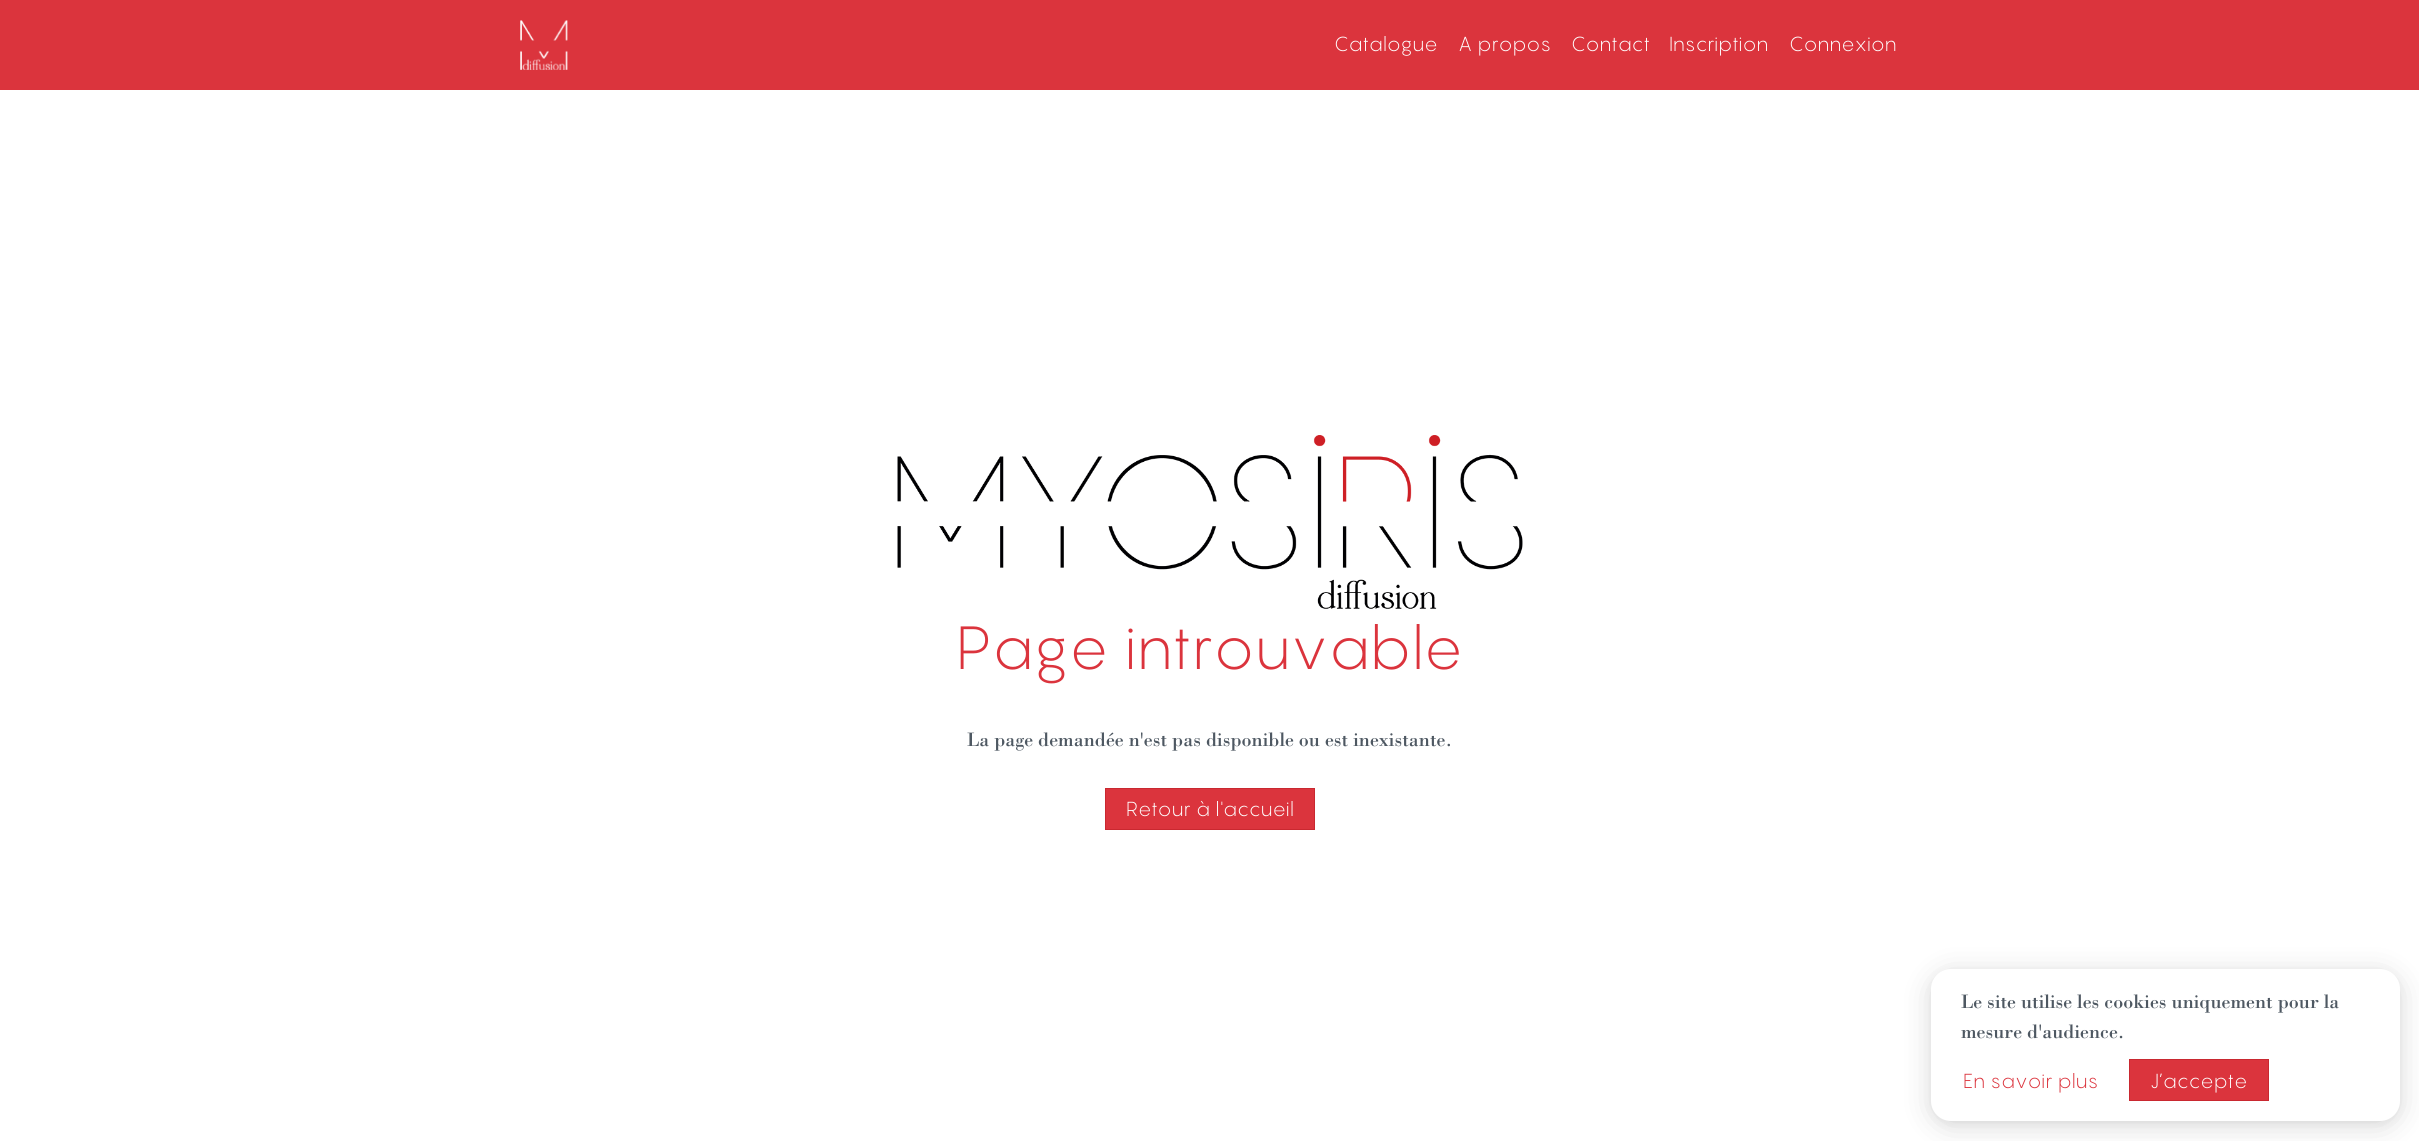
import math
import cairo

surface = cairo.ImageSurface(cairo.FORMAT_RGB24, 2419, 1141)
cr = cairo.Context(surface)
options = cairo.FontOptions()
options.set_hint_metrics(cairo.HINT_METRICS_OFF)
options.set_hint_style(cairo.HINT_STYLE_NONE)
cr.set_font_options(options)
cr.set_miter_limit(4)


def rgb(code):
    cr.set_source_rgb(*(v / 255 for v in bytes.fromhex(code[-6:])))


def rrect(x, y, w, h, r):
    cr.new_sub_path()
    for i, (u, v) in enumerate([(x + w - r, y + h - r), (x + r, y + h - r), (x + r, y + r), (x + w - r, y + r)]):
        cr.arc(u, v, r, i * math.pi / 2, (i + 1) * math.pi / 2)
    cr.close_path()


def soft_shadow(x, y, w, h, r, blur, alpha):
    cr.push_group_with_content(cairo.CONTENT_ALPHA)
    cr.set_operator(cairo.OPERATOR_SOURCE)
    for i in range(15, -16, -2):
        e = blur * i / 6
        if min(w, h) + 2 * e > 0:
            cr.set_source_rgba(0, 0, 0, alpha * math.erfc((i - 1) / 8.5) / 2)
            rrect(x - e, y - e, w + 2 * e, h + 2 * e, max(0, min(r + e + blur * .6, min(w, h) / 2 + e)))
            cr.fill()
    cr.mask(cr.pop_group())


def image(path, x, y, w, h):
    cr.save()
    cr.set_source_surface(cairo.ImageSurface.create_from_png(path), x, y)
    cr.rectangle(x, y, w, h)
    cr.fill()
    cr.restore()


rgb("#ffffff")
cr.paint()
rgb("#db343d")
cr.rectangle(0, 0, 2419, 90)
cr.fill()
image("img/1.png", 520, 20, 48, 50)
image("img/2.png", 897, 435, 626, 174)
cr.rectangle(1105.5, 788.5, 209, 41)
cr.fill_preserve()
rgb("#c92830")
cr.set_line_width(1)
cr.stroke()
rgb("#000000")
soft_shadow(1931, 971, 469, 153, 20, 4, 0.05)
soft_shadow(1931, 974, 469, 152, 20, 15, 0.14)
rgb("#ffffff")
rrect(1931, 969, 469, 152, 20)
cr.fill()
rgb("#db343d")
cr.rectangle(2129.5, 1059.5, 139, 41)
cr.fill_preserve()
rgb("#c92830")
cr.stroke()
cr.select_font_face("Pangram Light")
cr.set_font_size(20)
rgb("#ffffff")
for x, y, s in [
    (1334, 51, "Catalogue"),
    (1458, 51, "A propos"),
    (1571, 51, "Contact"),
    (1669, 51, "Inscription"),
    (1789, 51, "Connexion"),
]:
    cr.move_to(x, y)
    cr.show_text(s)
cr.set_font_size(60)
rgb("#db343d")
cr.move_to(956, 669)
cr.show_text("Page introuvable")
cr.select_font_face("Bodoni")
cr.set_font_size(20)
rgb("#4e5862")
cr.move_to(967, 746)
cr.show_text("La page demandée n'est pas disponible ou est inexistante.")
cr.select_font_face("Pangram Light")
rgb("#ffffff")
cr.move_to(1126, 816)
cr.show_text("Retour à l'accueil")
cr.select_font_face("Bodoni")
rgb("#4e5862")
cr.move_to(1961, 1008)
cr.show_text("Le site utilise les cookies uniquement pour la")
cr.move_to(1961, 1038)
cr.show_text("mesure d'audience.")
cr.select_font_face("Pangram Light")
rgb("#db343d")
cr.move_to(1963, 1088)
cr.show_text("En savoir plus")
rgb("#ffffff")
cr.move_to(2150, 1088)
cr.show_text("J’accepte")
surface.write_to_png("page.png")
